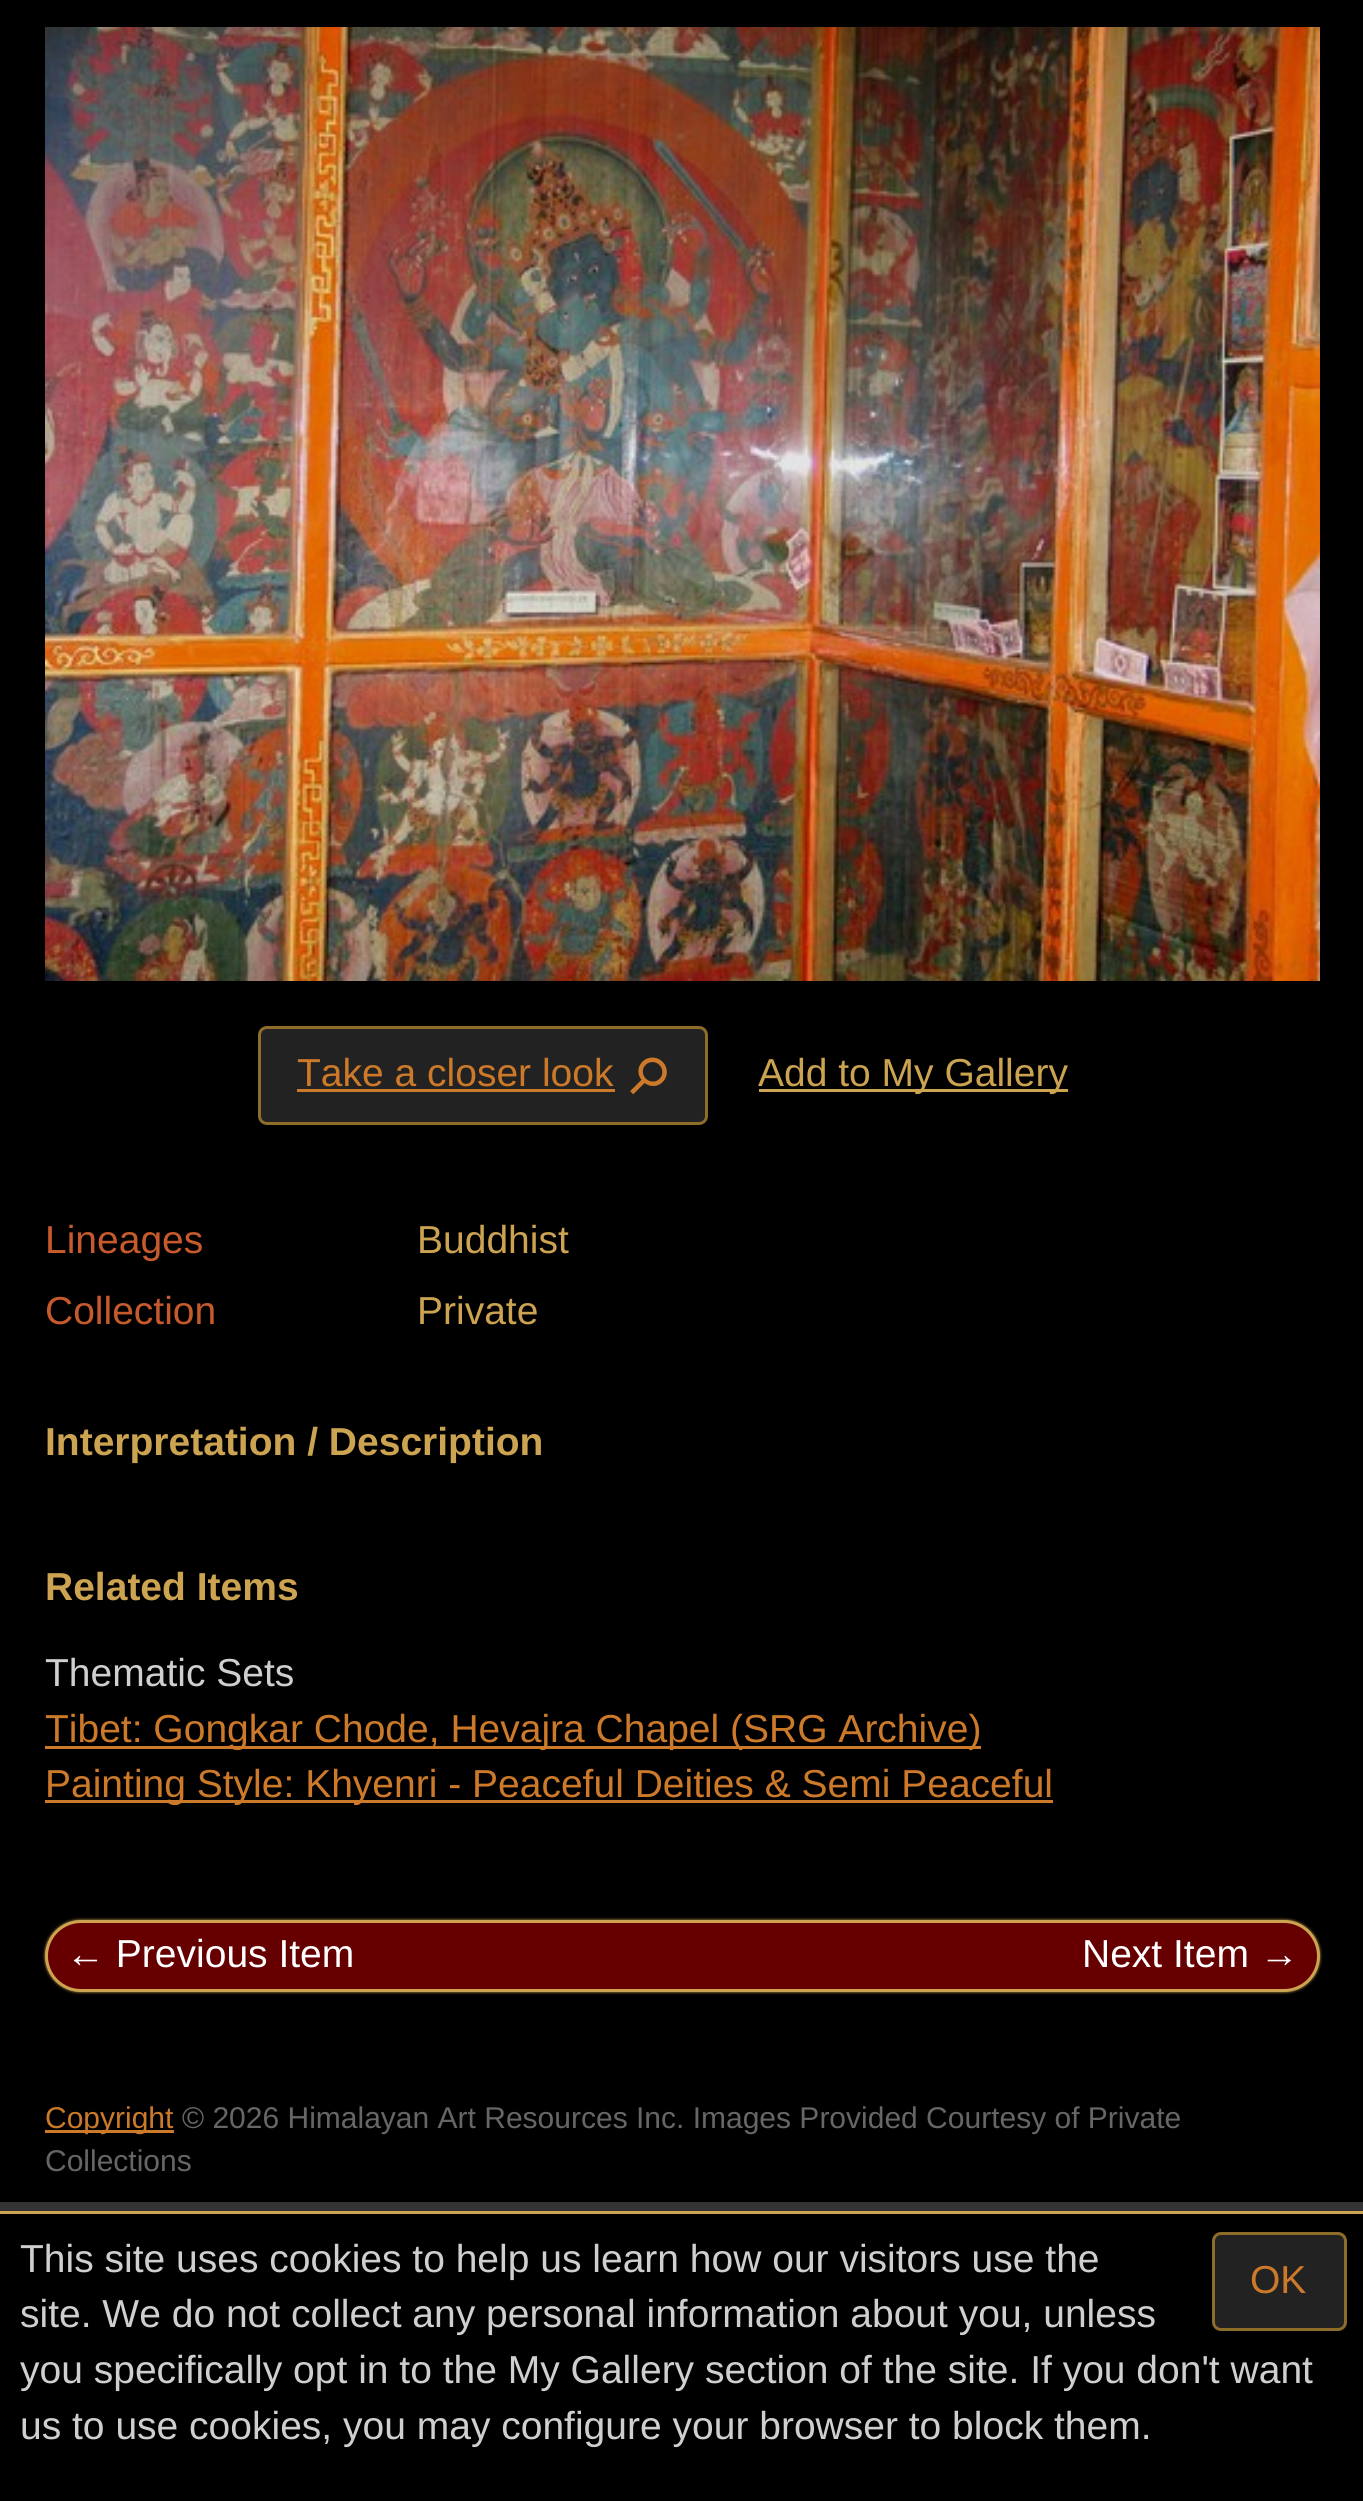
import math
import cairo

surface = cairo.ImageSurface(cairo.FORMAT_RGB24, 1363, 2501)
cr = cairo.Context(surface)
options = cairo.FontOptions()
options.set_hint_metrics(cairo.HINT_METRICS_OFF)
options.set_hint_style(cairo.HINT_STYLE_NONE)
cr.set_font_options(options)
cr.set_miter_limit(4)


def rgb(code):
    cr.set_source_rgb(*(v / 255 for v in bytes.fromhex(code[-6:])))


def rrect(x, y, w, h, r):
    cr.new_sub_path()
    for i, (u, v) in enumerate([(x + w - r, y + h - r), (x + r, y + h - r), (x + r, y + r), (x + w - r, y + r)]):
        cr.arc(u, v, r, i * math.pi / 2, (i + 1) * math.pi / 2)
    cr.close_path()


def soft_shadow(x, y, w, h, r, blur, alpha):
    cr.push_group_with_content(cairo.CONTENT_ALPHA)
    cr.set_operator(cairo.OPERATOR_SOURCE)
    for i in range(15, -16, -2):
        e = blur * i / 6
        if min(w, h) + 2 * e > 0:
            cr.set_source_rgba(0, 0, 0, alpha * math.erfc((i - 1) / 8.5) / 2)
            rrect(x - e, y - e, w + 2 * e, h + 2 * e, max(0, min(r + e + blur * .6, min(w, h) / 2 + e)))
            cr.fill()
    cr.mask(cr.pop_group())


def image(path, x, y, w, h):
    cr.save()
    cr.set_source_surface(cairo.ImageSurface.create_from_png(path), x, y)
    cr.rectangle(x, y, w, h)
    cr.fill()
    cr.restore()


rgb("#333333")
cr.paint()
rgb("#000000")
cr.rectangle(0, 0, 1363, 2202)
cr.fill()
image("img/1.png", 45, 27, 1275, 954)
rgb("#222222")
rrect(259.5, 1027.5, 447, 96, 7.5)
cr.fill_preserve()
rgb("#8e6c29")
cr.set_line_width(3)
cr.stroke()
for x, y, w, h, color in [
    (297, 1089, 318, 3, "#cc792a"),
    (759, 1089, 309, 3, "#cca351"),
    (45, 1746, 936, 3, "#cc792a"),
    (45, 1800, 1008, 3, "#cc792a"),
]:
    rgb(color)
    cr.rectangle(x, y, w, h)
    cr.fill()
rgb("#cca351")
soft_shadow(45, 1920, 1275, 72, 36, 1.5, 1)
rgb("#660000")
rrect(46.5, 1921.5, 1272, 69, 34.5)
cr.fill_preserve()
rgb("#cca351")
cr.stroke()
for x, y, w, h, color in [
    (45, 2130, 129, 3, "#cc792a"),
    (0, 2214, 1363, 287, "#000000"),
    (0, 2211, 1363, 3, "#cca351"),
]:
    rgb(color)
    cr.rectangle(x, y, w, h)
    cr.fill()
rgb("#222222")
rrect(1213.5, 2233.5, 132, 96, 7.5)
cr.fill_preserve()
rgb("#8e6c29")
cr.stroke()
cr.select_font_face("Liberation Sans")
cr.set_font_size(39)
rgb("#cc792a")
cr.move_to(297, 1086)
cr.show_text("Take a closer look")
cr.select_font_face("DejaVu Sans")
cr.set_font_size(51)
cr.save()
cr.translate(623, 1075)
cr.rotate(45 * math.pi / 180)
cr.move_to(0, 0)
cr.show_text("⚲")
cr.restore()
cr.select_font_face("Liberation Sans")
cr.set_font_size(39)
rgb("#cca351")
cr.move_to(758, 1086)
cr.show_text("Add to My Gallery")
rgb("#c65a2d")
cr.move_to(45, 1253)
cr.show_text("Lineages")
rgb("#cca351")
cr.move_to(417, 1253)
cr.show_text("Buddhist")
rgb("#c65a2d")
cr.move_to(45, 1324)
cr.show_text("Collection")
rgb("#cca351")
cr.move_to(417, 1324)
cr.show_text("Private")
cr.select_font_face("Liberation Sans", cairo.FONT_SLANT_NORMAL, cairo.FONT_WEIGHT_BOLD)
cr.move_to(45, 1455)
cr.show_text("Interpretation / Description")
cr.move_to(45, 1600)
cr.show_text("Related Items")
cr.select_font_face("Liberation Sans")
rgb("#cfcfcf")
cr.move_to(45, 1686)
cr.show_text("Thematic Sets")
rgb("#cc792a")
cr.move_to(45, 1742)
cr.show_text("Tibet: Gongkar Chode, Hevajra Chapel (SRG Archive)")
cr.move_to(45, 1797)
cr.show_text("Painting Style: Khyenri - Peaceful Deities & Semi Peaceful")
rgb("#ffffff")
cr.move_to(66, 1967)
cr.show_text("← Previous Item")
cr.move_to(1082, 1967)
cr.show_text("Next Item →")
cr.set_font_size(30)
rgb("#cc792a")
cr.move_to(45, 2128)
cr.show_text("Copyright")
rgb("#666666")
cr.move_to(182, 2128)
cr.show_text("© 2026 Himalayan Art Resources Inc. Images Provided Courtesy of Private")
cr.move_to(45, 2171)
cr.show_text("Collections")
cr.set_font_size(39)
rgb("#cfcfcf")
for x, y, s in [
    (20, 2272, "This site uses cookies to help us learn how our visitors use the"),
    (20, 2327, "site. We do not collect any personal information about you, unless"),
    (20, 2383, "you specifically opt in to the My Gallery section of the site. If you don't want"),
    (20, 2439, "us to use cookies, you may configure your browser to block them."),
]:
    cr.move_to(x, y)
    cr.show_text(s)
rgb("#cc792a")
cr.move_to(1250, 2293)
cr.show_text("OK")
surface.write_to_png("page.png")
